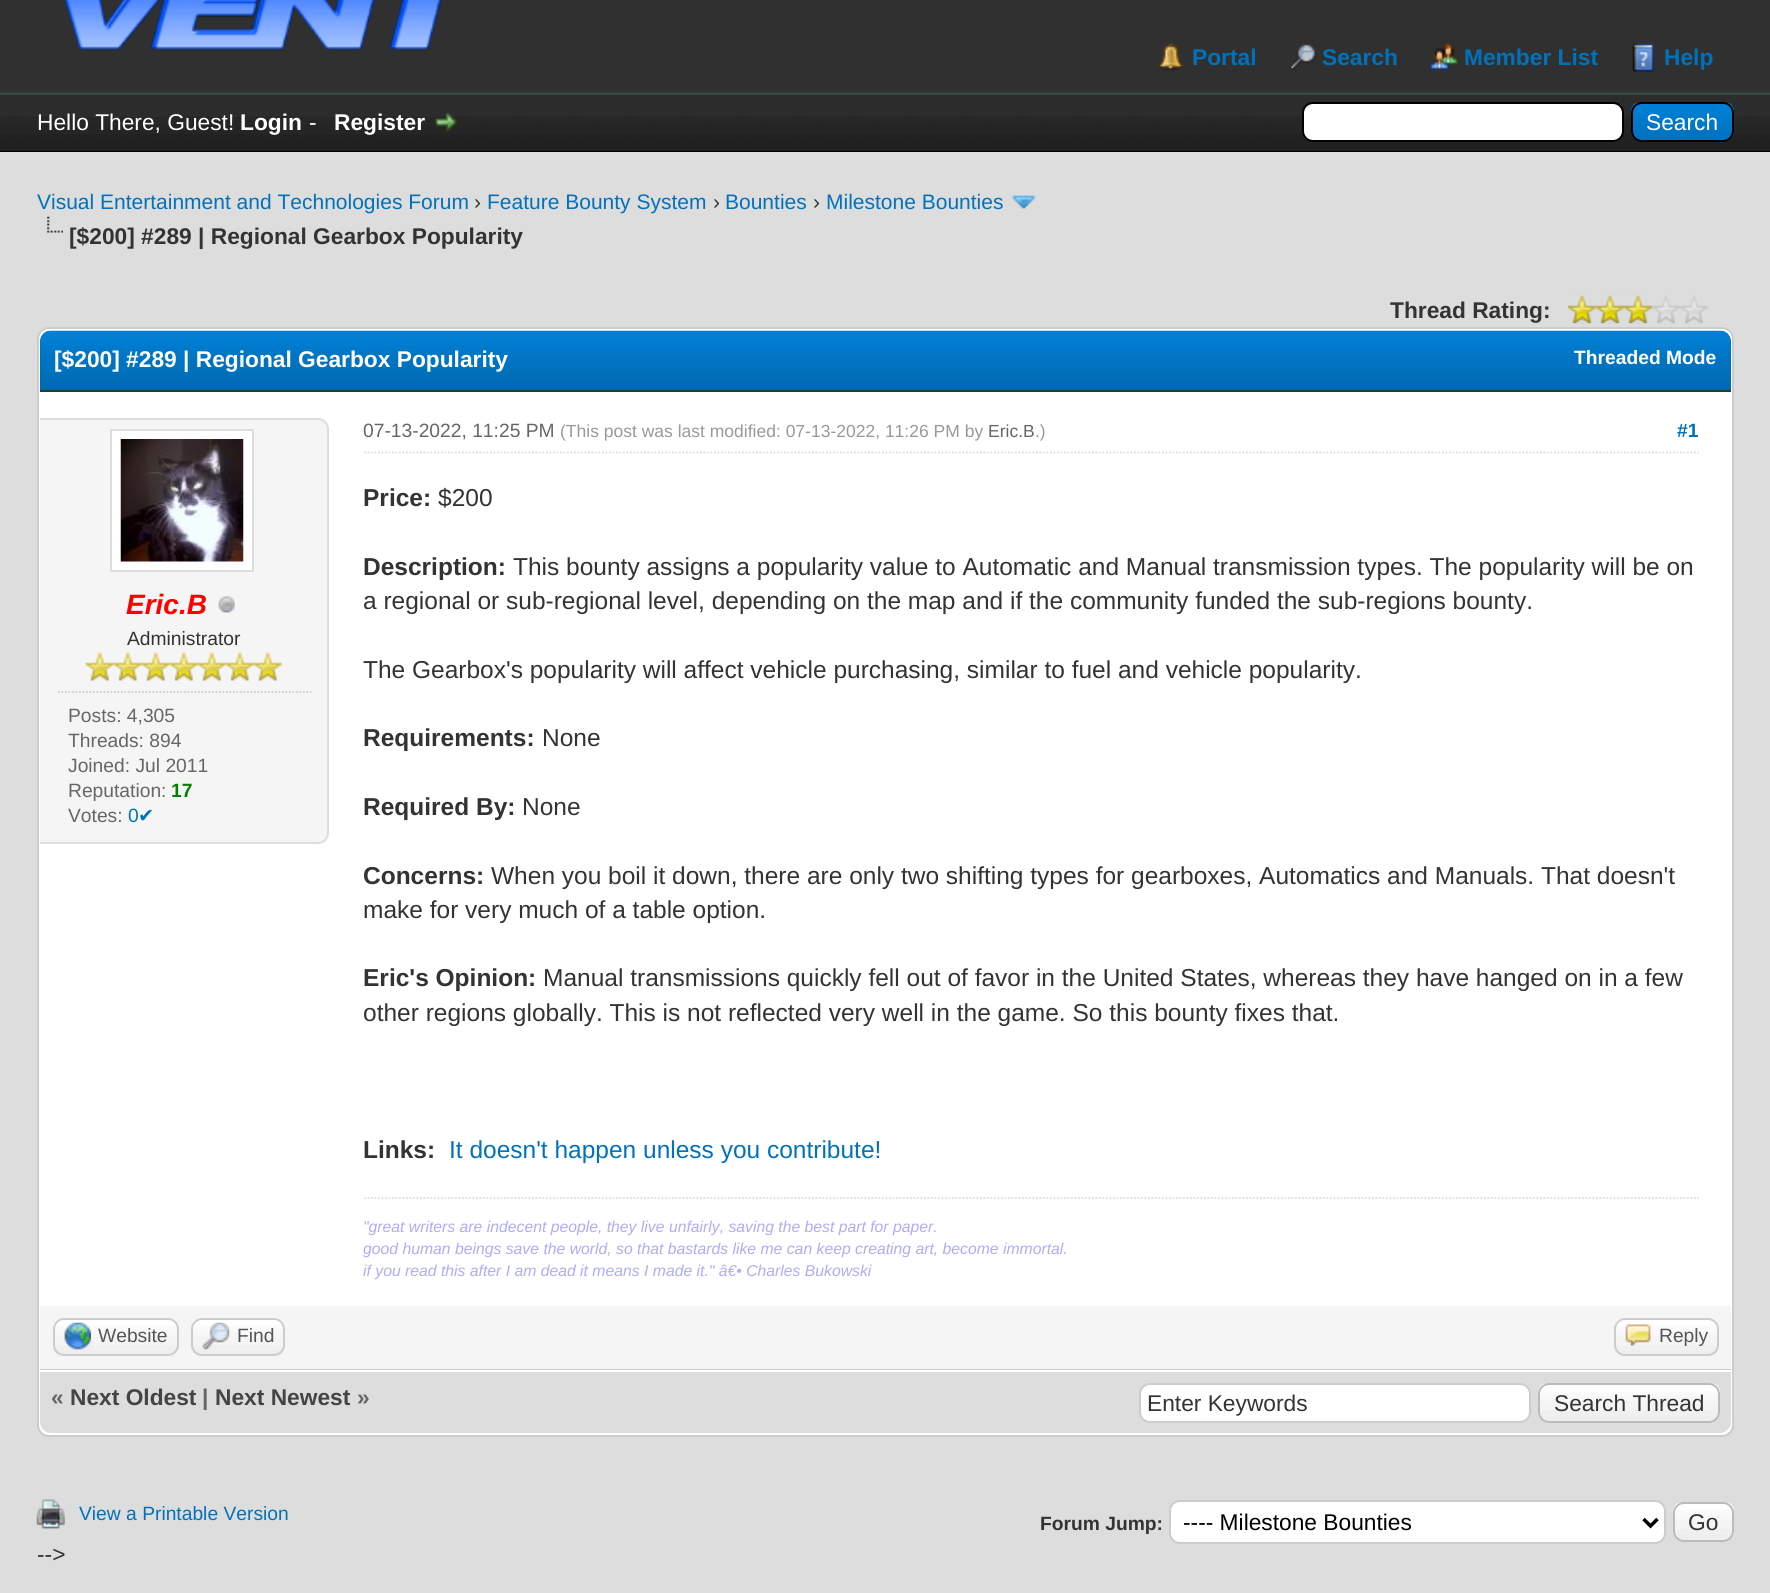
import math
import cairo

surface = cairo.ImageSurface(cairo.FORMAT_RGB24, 1770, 1593)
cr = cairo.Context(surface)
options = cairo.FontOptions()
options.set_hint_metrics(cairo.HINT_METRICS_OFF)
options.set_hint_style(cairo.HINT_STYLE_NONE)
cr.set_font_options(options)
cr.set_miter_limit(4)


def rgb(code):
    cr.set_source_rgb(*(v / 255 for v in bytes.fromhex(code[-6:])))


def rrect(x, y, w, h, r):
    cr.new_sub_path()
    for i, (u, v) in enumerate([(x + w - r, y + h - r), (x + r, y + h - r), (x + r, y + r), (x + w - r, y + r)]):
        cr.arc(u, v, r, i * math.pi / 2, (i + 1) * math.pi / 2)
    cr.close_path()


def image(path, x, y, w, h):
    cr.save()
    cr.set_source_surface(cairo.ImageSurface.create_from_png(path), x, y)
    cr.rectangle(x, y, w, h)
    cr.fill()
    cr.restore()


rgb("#303030")
cr.paint()
rgb("#263c30")
cr.rectangle(0, 91, 1770, 2)
cr.fill()
image("img/1.png", 64, 0, 378, 51)
image("img/2.png", 1158, 43, 26, 28)
image("img/3.png", 1290, 44, 26, 26)
image("img/4.png", 1429, 43, 29, 28)
image("img/5.png", 1632, 43, 23, 29)
image("img/6.png", 0, 95, 1770, 56)
rgb("#444444")
cr.rectangle(0, 93, 1770, 2)
cr.fill()
rgb("#000000")
cr.rectangle(0, 151, 1770, 1)
cr.fill()
image("img/7.png", 435, 113, 22, 19)
rgb("#ffffff")
rrect(1303, 103, 320, 38, 10)
cr.fill_preserve()
rgb("#000000")
cr.stroke()
image("img/8.png", 1631, 103, 104, 39)
rrect(1632, 103, 101, 38, 10)
cr.stroke()
rgb("#dddddd")
cr.rectangle(0, 152, 1770, 1441)
cr.fill()
image("img/9.png", 1011, 195, 26, 14)
image("img/10.png", 46, 216, 17, 17)
image("img/11.png", 1568, 295, 140, 29)
image("img/12.png", 1568, 295, 84, 29)
rgb("#ffffff")
rrect(38, 328, 1695, 1108, 11)
cr.fill_preserve()
rgb("#cccccc")
cr.stroke()
rgb("#0066a2")
cr.new_path()
cr.move_to(51, 331)
cr.line_to(1720, 331)
cr.curve_to(1726, 331, 1731, 336, 1731, 342)
cr.line_to(1731, 392)
cr.line_to(40, 392)
cr.line_to(40, 342)
cr.curve_to(40, 336, 45, 331, 51, 331)
cr.close_path()
cr.fill()
image("img/13.png", 40, 330, 1691, 60)
rgb("#263c30")
cr.rectangle(40, 390, 1691, 2)
cr.fill()
rgb("#f5f5f5")
cr.new_path()
cr.move_to(40, 418)
cr.line_to(318, 418)
cr.curve_to(324, 418, 329, 423, 329, 429)
cr.line_to(329, 833)
cr.curve_to(329, 839, 324, 844, 318, 844)
cr.line_to(40, 844)
cr.close_path()
cr.fill()
rgb("#dddddd")
cr.set_fill_rule(cairo.FILL_RULE_EVEN_ODD)
cr.new_path()
cr.move_to(40, 418)
cr.line_to(318, 418)
cr.curve_to(324, 418, 329, 423, 329, 429)
cr.line_to(329, 833)
cr.curve_to(329, 839, 324, 844, 318, 844)
cr.line_to(40, 844)
cr.close_path()
cr.move_to(40, 420)
cr.line_to(318, 420)
cr.curve_to(323, 420, 327, 424, 327, 429)
cr.line_to(327, 833)
cr.curve_to(327, 838, 323, 842, 318, 842)
cr.line_to(40, 842)
cr.close_path()
cr.fill()
rgb("#ffffff")
cr.rectangle(111, 430, 142, 141)
cr.fill_preserve()
rgb("#dddddd")
cr.stroke()
image("img/14.png", 120, 439, 124, 123)
image("img/15.png", 218, 596, 17, 17)
image("img/16.png", 85, 652, 29, 29)
image("img/17.png", 113, 652, 29, 29)
image("img/17.png", 141, 652, 29, 29)
image("img/18.png", 169, 652, 29, 29)
image("img/18.png", 197, 652, 29, 29)
image("img/17.png", 225, 652, 29, 29)
image("img/17.png", 253, 652, 29, 29)
cr.new_path()
cr.move_to(58, 692)
cr.line_to(311.5, 692)
rgb("#cccccc")
cr.set_line_width(1.8)
cr.set_dash([1.75, 1.75])
cr.stroke()
cr.new_path()
cr.move_to(364, 452.5)
cr.line_to(1699, 452.5)
rgb("#dddddd")
cr.stroke()
cr.new_path()
cr.move_to(364, 1198)
cr.line_to(1699, 1198)
cr.stroke()
rgb("#f5f5f5")
cr.rectangle(40, 1306, 1691, 63)
cr.fill()
rgb("#cccccc")
cr.rectangle(40, 1369, 1691, 1)
cr.fill()
image("img/19.png", 53, 1319, 125, 36)
rrect(54, 1319, 124, 36, 10)
cr.set_line_width(2)
cr.set_dash([])
cr.stroke()
image("img/20.png", 64, 1322, 27, 28)
image("img/21.png", 191, 1319, 94, 36)
rrect(192, 1319, 92, 36, 10)
cr.stroke()
image("img/22.png", 202, 1322, 28, 28)
image("img/23.png", 1614, 1319, 104, 36)
rrect(1615, 1319, 103, 36, 10)
cr.stroke()
image("img/24.png", 1625, 1324, 26, 22)
rgb("#dddddd")
cr.new_path()
cr.move_to(40, 1370)
cr.line_to(1731, 1370)
cr.line_to(1731, 1422)
cr.curve_to(1731, 1428, 1726, 1433, 1720, 1433)
cr.line_to(51, 1433)
cr.curve_to(45, 1433, 40, 1428, 40, 1422)
cr.close_path()
cr.fill()
rgb("#ffffff")
cr.rectangle(40, 1370, 1691, 2)
cr.fill()
rrect(1140, 1384, 390, 38, 10)
cr.fill_preserve()
rgb("#cccccc")
cr.stroke()
rgb("#eeeeee")
rrect(1538, 1383, 182, 40, 11)
cr.fill()
image("img/25.png", 1538, 1384, 182, 34)
rrect(1539, 1384, 180, 38, 10)
rgb("#bbbbbb")
cr.stroke()
image("img/26.png", 36, 1499, 29, 30)
rgb("#ffffff")
rrect(1170, 1501, 495, 42, 10)
cr.fill_preserve()
rgb("#cccccc")
cr.stroke()
cr.new_path()
cr.move_to(1643.5, 1519)
cr.line_to(1650.5, 1526)
cr.line_to(1657.5, 1519)
rgb("#000000")
cr.set_line_width(3.5)
cr.stroke()
rgb("#eeeeee")
rrect(1673, 1502, 61, 40, 11)
cr.fill()
image("img/27.png", 1673, 1503, 61, 34)
rrect(1674, 1503, 59, 38, 10)
rgb("#bbbbbb")
cr.set_line_width(2)
cr.stroke()
cr.select_font_face("Liberation Sans", cairo.FONT_SLANT_NORMAL, cairo.FONT_WEIGHT_BOLD)
cr.set_font_size(22.75)
rgb("#0072bc")
for x, y, s in [
    (1192, 65, "Portal"),
    (1322, 65, "Search"),
    (1464, 65, "Member List"),
    (1664, 65, "Help"),
]:
    cr.move_to(x, y)
    cr.show_text(s)
cr.select_font_face("Liberation Sans")
rgb("#ffffff")
cr.move_to(37, 130)
cr.show_text("Hello There, Guest!")
cr.select_font_face("Liberation Sans", cairo.FONT_SLANT_NORMAL, cairo.FONT_WEIGHT_BOLD)
cr.move_to(240, 130)
cr.show_text("Login")
cr.select_font_face("Liberation Sans")
cr.move_to(309, 130)
cr.show_text("-")
cr.select_font_face("Liberation Sans", cairo.FONT_SLANT_NORMAL, cairo.FONT_WEIGHT_BOLD)
cr.move_to(334, 130)
cr.show_text("Register")
cr.select_font_face("Liberation Sans")
cr.move_to(1646, 130)
cr.show_text("Search")
cr.set_font_size(21)
rgb("#0072bc")
cr.move_to(37, 209)
cr.show_text("Visual Entertainment and Technologies Forum")
rgb("#333333")
cr.move_to(474, 209)
cr.show_text("›")
rgb("#0072bc")
cr.move_to(487, 209)
cr.show_text("Feature Bounty System")
rgb("#333333")
cr.move_to(713, 209)
cr.show_text("›")
rgb("#0072bc")
cr.move_to(725, 209)
cr.show_text("Bounties")
rgb("#333333")
cr.move_to(813, 209)
cr.show_text("›")
rgb("#0072bc")
cr.move_to(826, 209)
cr.show_text("Milestone Bounties")
cr.select_font_face("Liberation Sans", cairo.FONT_SLANT_NORMAL, cairo.FONT_WEIGHT_BOLD)
cr.set_font_size(22.75)
rgb("#333333")
cr.move_to(69, 244)
cr.show_text("[$200] #289 | Regional Gearbox Popularity")
cr.move_to(1390, 318)
cr.show_text("Thread Rating:")
rgb("#ffffff")
cr.move_to(54, 367)
cr.show_text("[$200] #289 | Regional Gearbox Popularity")
cr.set_font_size(19.25)
cr.move_to(1574, 364)
cr.show_text("Threaded Mode")
cr.select_font_face("Liberation Sans", cairo.FONT_SLANT_ITALIC, cairo.FONT_WEIGHT_BOLD)
cr.set_font_size(28)
rgb("#ff0000")
cr.move_to(126, 614)
cr.show_text("Eric.B")
cr.select_font_face("Liberation Sans")
cr.set_font_size(19.25)
rgb("#333333")
cr.move_to(127, 645)
cr.show_text("Administrator")
rgb("#666666")
for x, y, s in [
    (68, 722, "Posts: 4,305"),
    (68, 747, "Threads: 894"),
    (68, 772, "Joined: Jul 2011"),
    (68, 797, "Reputation:"),
]:
    cr.move_to(x, y)
    cr.show_text(s)
cr.select_font_face("Liberation Sans", cairo.FONT_SLANT_NORMAL, cairo.FONT_WEIGHT_BOLD)
rgb("#008000")
cr.move_to(171, 797)
cr.show_text("17")
cr.select_font_face("Liberation Sans")
rgb("#666666")
cr.move_to(68, 822)
cr.show_text("Votes:")
rgb("#0072bc")
cr.move_to(128, 822)
cr.show_text("0")
cr.select_font_face("DejaVu Sans")
cr.move_to(138, 822)
cr.show_text("✔")
cr.select_font_face("Liberation Sans")
rgb("#666666")
cr.move_to(363, 437)
cr.show_text("07-13-2022, 11:25 PM")
cr.set_font_size(17.5)
rgb("#999999")
cr.move_to(560, 437)
cr.show_text("(This post was last modified: 07-13-2022, 11:26 PM by")
rgb("#666666")
cr.move_to(988, 437)
cr.show_text("Eric.B")
rgb("#999999")
cr.move_to(1035, 437)
cr.show_text(".)")
cr.select_font_face("Liberation Sans", cairo.FONT_SLANT_NORMAL, cairo.FONT_WEIGHT_BOLD)
cr.set_font_size(19.25)
rgb("#0072bc")
cr.move_to(1677, 437)
cr.show_text("#1")
cr.set_font_size(24.5)
rgb("#333333")
cr.move_to(363, 506)
cr.show_text("Price:")
cr.select_font_face("Liberation Sans")
cr.move_to(438, 506)
cr.show_text("$200")
cr.select_font_face("Liberation Sans", cairo.FONT_SLANT_NORMAL, cairo.FONT_WEIGHT_BOLD)
cr.move_to(363, 575)
cr.show_text("Description:")
cr.select_font_face("Liberation Sans")
for x, y, s in [
    (513, 575, "This bounty assigns a popularity value to Automatic and Manual transmission types. The popularity will be on"),
    (363, 609, "a regional or sub-regional level, depending on the map and if the community funded the sub-regions bounty."),
    (363, 678, "The Gearbox's popularity will affect vehicle purchasing, similar to fuel and vehicle popularity."),
]:
    cr.move_to(x, y)
    cr.show_text(s)
cr.select_font_face("Liberation Sans", cairo.FONT_SLANT_NORMAL, cairo.FONT_WEIGHT_BOLD)
cr.move_to(363, 746)
cr.show_text("Requirements:")
cr.select_font_face("Liberation Sans")
cr.move_to(542, 746)
cr.show_text("None")
cr.select_font_face("Liberation Sans", cairo.FONT_SLANT_NORMAL, cairo.FONT_WEIGHT_BOLD)
cr.move_to(363, 815)
cr.show_text("Required By:")
cr.select_font_face("Liberation Sans")
cr.move_to(522, 815)
cr.show_text("None")
cr.select_font_face("Liberation Sans", cairo.FONT_SLANT_NORMAL, cairo.FONT_WEIGHT_BOLD)
cr.move_to(363, 884)
cr.show_text("Concerns:")
cr.select_font_face("Liberation Sans")
cr.move_to(491, 884)
cr.show_text("When you boil it down, there are only two shifting types for gearboxes, Automatics and Manuals. That doesn't")
cr.move_to(363, 918)
cr.show_text("make for very much of a table option.")
cr.select_font_face("Liberation Sans", cairo.FONT_SLANT_NORMAL, cairo.FONT_WEIGHT_BOLD)
cr.move_to(363, 986)
cr.show_text("Eric's Opinion:")
cr.select_font_face("Liberation Sans")
cr.move_to(543, 986)
cr.show_text("Manual transmissions quickly fell out of favor in the United States, whereas they have hanged on in a few")
cr.move_to(363, 1021)
cr.show_text("other regions globally. This is not reflected very well in the game. So this bounty fixes that.")
cr.select_font_face("Liberation Sans", cairo.FONT_SLANT_NORMAL, cairo.FONT_WEIGHT_BOLD)
cr.move_to(363, 1158)
cr.show_text("Links:")
cr.select_font_face("Liberation Sans")
rgb("#0072bc")
cr.move_to(449, 1158)
cr.show_text("It doesn't happen unless you contribute!")
cr.select_font_face("Liberation Sans", cairo.FONT_SLANT_ITALIC)
cr.set_font_size(15.75)
rgb("#acacff")
for x, y, s in [
    (363, 1232, "\"great writers are indecent people, they live unfairly, saving the best part for paper."),
    (363, 1254, "good human beings save the world, so that bastards like me can keep creating art, become immortal."),
    (363, 1276, "if you read this after I am dead it means I made it.\" â€• Charles Bukowski"),
]:
    cr.move_to(x, y)
    cr.show_text(s)
cr.select_font_face("Liberation Sans")
cr.set_font_size(19.25)
rgb("#555555")
for x, y, s in [
    (98, 1342, "Website"),
    (237, 1342, "Find"),
    (1659, 1342, "Reply"),
]:
    cr.move_to(x, y)
    cr.show_text(s)
cr.select_font_face("Liberation Sans", cairo.FONT_SLANT_NORMAL, cairo.FONT_WEIGHT_BOLD)
cr.set_font_size(22.75)
rgb("#666666")
cr.move_to(51, 1405)
cr.show_text("«")
rgb("#444444")
cr.move_to(70, 1405)
cr.show_text("Next Oldest")
rgb("#666666")
cr.move_to(202, 1405)
cr.show_text("|")
rgb("#444444")
cr.move_to(215, 1405)
cr.show_text("Next Newest")
rgb("#666666")
cr.move_to(357, 1405)
cr.show_text("»")
cr.select_font_face("Liberation Sans")
rgb("#333333")
cr.move_to(1147, 1411)
cr.show_text("Enter Keywords")
cr.move_to(1554, 1411)
cr.show_text("Search Thread")
cr.set_font_size(19.25)
rgb("#0072bc")
cr.move_to(79, 1520)
cr.show_text("View a Printable Version")
cr.set_font_size(22.75)
rgb("#333333")
cr.move_to(37, 1562)
cr.show_text("-->")
cr.select_font_face("Liberation Sans", cairo.FONT_SLANT_NORMAL, cairo.FONT_WEIGHT_BOLD)
cr.set_font_size(19.25)
cr.move_to(1040, 1530)
cr.show_text("Forum Jump:")
cr.select_font_face("Liberation Sans")
cr.set_font_size(22.75)
rgb("#000000")
cr.move_to(1183, 1530)
cr.show_text("---- Milestone Bounties")
rgb("#333333")
cr.move_to(1688, 1530)
cr.show_text("Go")
surface.write_to_png("page.png")
